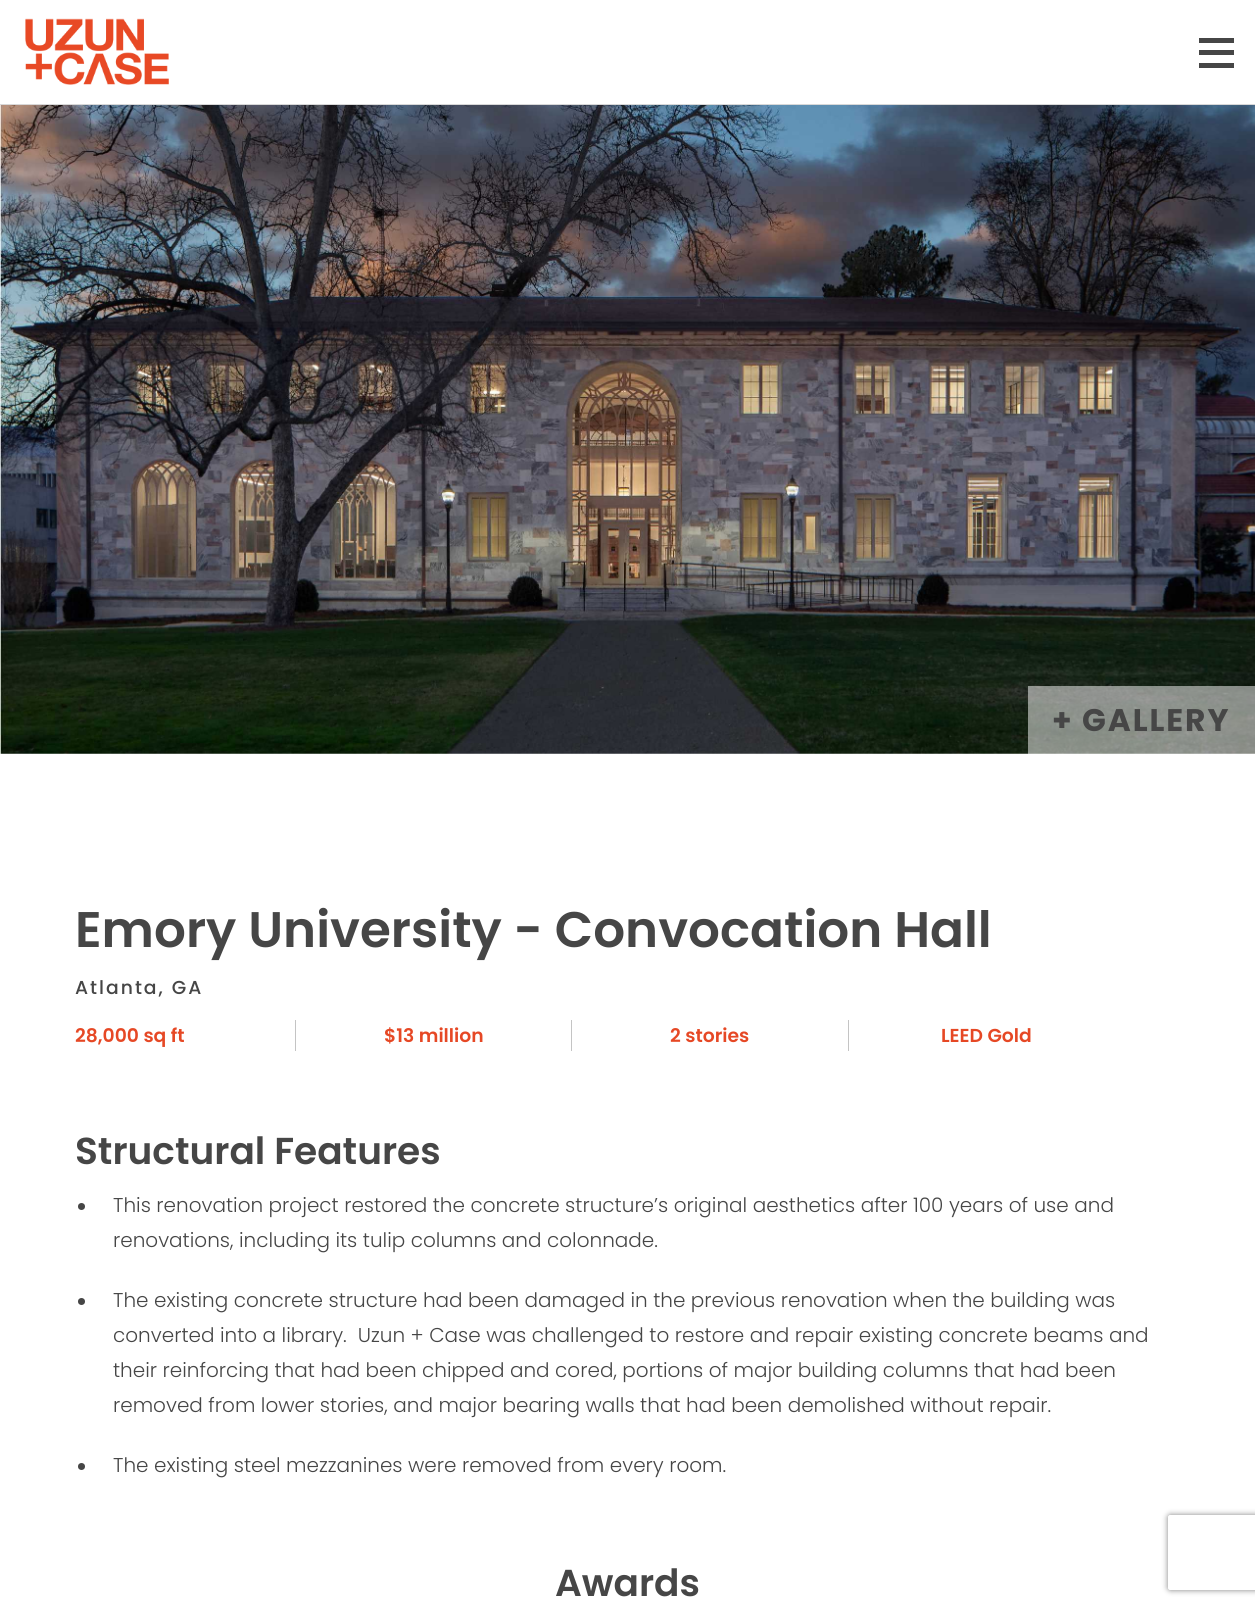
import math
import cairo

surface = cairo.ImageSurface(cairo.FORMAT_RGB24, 1255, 1607)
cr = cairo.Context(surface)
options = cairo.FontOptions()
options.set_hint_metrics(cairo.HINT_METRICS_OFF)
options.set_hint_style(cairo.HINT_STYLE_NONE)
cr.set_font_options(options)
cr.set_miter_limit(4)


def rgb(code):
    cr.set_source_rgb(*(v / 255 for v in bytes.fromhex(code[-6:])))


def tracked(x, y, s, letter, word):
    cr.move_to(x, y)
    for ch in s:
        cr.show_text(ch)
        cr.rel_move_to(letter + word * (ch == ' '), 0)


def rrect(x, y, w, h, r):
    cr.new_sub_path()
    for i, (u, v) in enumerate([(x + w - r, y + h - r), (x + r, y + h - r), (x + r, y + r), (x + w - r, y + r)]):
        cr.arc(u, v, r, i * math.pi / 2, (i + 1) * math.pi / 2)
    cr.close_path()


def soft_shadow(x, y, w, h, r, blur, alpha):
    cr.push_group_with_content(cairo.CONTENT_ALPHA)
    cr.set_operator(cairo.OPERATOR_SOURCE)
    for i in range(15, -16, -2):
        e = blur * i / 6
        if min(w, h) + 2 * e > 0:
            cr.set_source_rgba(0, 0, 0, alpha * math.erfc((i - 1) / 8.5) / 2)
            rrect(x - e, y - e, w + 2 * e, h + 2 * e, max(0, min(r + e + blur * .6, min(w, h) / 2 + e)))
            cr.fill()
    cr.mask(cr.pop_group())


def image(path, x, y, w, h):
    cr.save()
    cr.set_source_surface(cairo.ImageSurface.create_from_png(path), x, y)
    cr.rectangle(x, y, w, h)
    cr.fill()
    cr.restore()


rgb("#ffffff")
cr.paint()
rgb("#d8d8d8")
cr.rectangle(0, 104, 1255, 1)
cr.fill()
image("img/1.png", 25, 18, 144, 67)
for x, y, w, h, color in [
    (1199, 38, 35, 5, "#464646"),
    (1199, 50, 35, 5, "#464646"),
    (1199, 63, 35, 5, "#464646"),
]:
    rgb(color)
    cr.rectangle(x, y, w, h)
    cr.fill()
image("img/2.png", 0, 105, 1255, 649)
cr.set_source_rgba(1, 1, 1, 0.5)
cr.rectangle(1028, 686, 227, 68)
cr.fill()
rgb("#c4c4c4")
cr.rectangle(295, 1020, 1, 31)
cr.rectangle(571, 1020, 1, 31)
cr.rectangle(848, 1020, 1, 31)
cr.fill()
rgb("#464646")
cr.arc(81.5, 1206.5, 3.5, 0, 2 * math.pi)
cr.fill()
cr.arc(81.5, 1301.5, 3.5, 0, 2 * math.pi)
cr.fill()
cr.arc(81.5, 1466.5, 3.5, 0, 2 * math.pi)
cr.fill()
cr.save()
cr.set_fill_rule(cairo.FILL_RULE_EVEN_ODD)
cr.new_path()
cr.move_to(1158, 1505)
cr.line_to(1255, 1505)
cr.line_to(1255, 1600)
cr.line_to(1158, 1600)
cr.close_path()
cr.move_to(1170.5, 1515)
cr.line_to(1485.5, 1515)
cr.curve_to(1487, 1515, 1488, 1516, 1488, 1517.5)
cr.line_to(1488, 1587.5)
cr.curve_to(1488, 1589, 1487, 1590, 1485.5, 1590)
cr.line_to(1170.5, 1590)
cr.curve_to(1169, 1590, 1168, 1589, 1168, 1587.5)
cr.line_to(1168, 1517.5)
cr.curve_to(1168, 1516, 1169, 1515, 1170.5, 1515)
cr.close_path()
cr.clip()
rgb("#808080")
soft_shadow(1168, 1515, 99, 75, 2.5, 3, 1)
cr.restore()
cr.select_font_face("Poppins", cairo.FONT_SLANT_NORMAL, cairo.FONT_WEIGHT_BOLD)
cr.set_font_size(31.25)
tracked(1052, 731, "+ GALLERY", 1.9, 0)
cr.select_font_face("Poppins SemiBold")
cr.set_font_size(50)
cr.move_to(75, 947)
cr.show_text("Emory University - Convocation Hall")
cr.select_font_face("Poppins Medium")
cr.set_font_size(18.75)
tracked(75, 994, "Atlanta, GA", 2, 0)
cr.select_font_face("Poppins SemiBold")
rgb("#e64825")
for x, y, s in [
    (75, 1042, "28,000 sq ft"),
    (384, 1042, "$13 million"),
    (670, 1042, "2 stories"),
    (941, 1042, "LEED Gold"),
]:
    cr.move_to(x, y)
    cr.show_text(s)
cr.set_font_size(37.5)
rgb("#464646")
cr.move_to(75, 1164)
cr.show_text("Structural Features")
cr.select_font_face("Poppins Light")
cr.set_font_size(20)
for x, y, s in [
    (113, 1212, "This renovation project restored the concrete structure’s original aesthetics after 100 years of use and"),
    (113, 1247, "renovations, including its tulip columns and colonnade."),
    (113, 1307, "The existing concrete structure had been damaged in the previous renovation when the building was"),
    (113, 1342, "converted into a library.  Uzun + Case was challenged to restore and repair existing concrete beams and"),
    (113, 1377, "their reinforcing that had been chipped and cored, portions of major building columns that had been"),
    (113, 1412, "removed from lower stories, and major bearing walls that had been demolished without repair."),
    (113, 1472, "The existing steel mezzanines were removed from every room."),
]:
    cr.move_to(x, y)
    cr.show_text(s)
cr.select_font_face("Poppins SemiBold")
cr.set_font_size(37.5)
cr.move_to(555, 1596)
cr.show_text("Awards")
surface.write_to_png("page.png")
